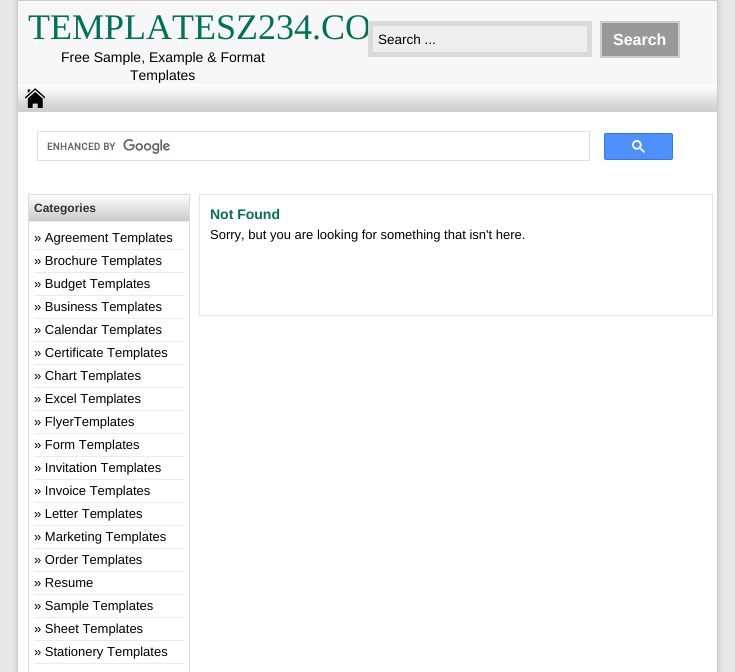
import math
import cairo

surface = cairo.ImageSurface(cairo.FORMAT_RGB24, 735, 672)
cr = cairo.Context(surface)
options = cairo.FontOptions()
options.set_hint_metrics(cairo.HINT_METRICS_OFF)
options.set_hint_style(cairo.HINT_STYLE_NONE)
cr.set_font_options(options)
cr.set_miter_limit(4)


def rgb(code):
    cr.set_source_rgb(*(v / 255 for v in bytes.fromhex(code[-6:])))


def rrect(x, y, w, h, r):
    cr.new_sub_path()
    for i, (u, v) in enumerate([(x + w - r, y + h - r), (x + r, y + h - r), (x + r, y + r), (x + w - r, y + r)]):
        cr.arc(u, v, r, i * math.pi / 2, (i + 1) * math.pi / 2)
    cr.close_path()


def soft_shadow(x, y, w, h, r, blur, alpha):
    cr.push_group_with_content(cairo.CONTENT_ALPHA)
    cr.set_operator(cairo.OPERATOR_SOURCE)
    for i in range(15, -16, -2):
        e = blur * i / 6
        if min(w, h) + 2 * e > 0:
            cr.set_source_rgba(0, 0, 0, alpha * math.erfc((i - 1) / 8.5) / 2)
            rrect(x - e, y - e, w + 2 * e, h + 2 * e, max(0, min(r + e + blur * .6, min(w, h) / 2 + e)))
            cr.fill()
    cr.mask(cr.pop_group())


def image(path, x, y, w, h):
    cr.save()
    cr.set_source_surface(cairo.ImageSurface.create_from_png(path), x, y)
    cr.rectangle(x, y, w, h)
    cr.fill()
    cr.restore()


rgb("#e8e8e8")
cr.paint()
rgb("#646464")
soft_shadow(17, 2, 701, 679, 0, 3, 0.3)
rgb("#ffffff")
cr.rectangle(18, 111, 699, 561)
cr.fill()
cr.rectangle(17.5, 0.5, 700, 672)
rgb("#cccccc")
cr.set_line_width(1)
cr.stroke()
rgb("#f7f7f7")
cr.rectangle(18, 1, 699, 83)
cr.fill()
rgb("#999999")
cr.rectangle(601, 22, 78, 35)
cr.fill_preserve()
rgb("#cccccc")
cr.set_line_width(2)
cr.stroke()
image("img/1.png", 18, 84, 699, 28)
image("img/2.png", 25, 88, 20, 20)
cr.rectangle(37.5, 131.5, 552, 29)
rgb("#dfe1e5")
cr.set_line_width(1)
cr.stroke()
image("img/3.png", 47, 139, 123, 15)
rgb("#4d90fe")
rrect(604.5, 133.5, 68, 26, 1.5)
cr.fill_preserve()
rgb("#3079ed")
cr.stroke()
image("img/4.png", 632, 140, 13, 13)
cr.rectangle(28.5, 194.5, 161, 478)
rgb("#dcdcdc")
cr.stroke()
rgb("#cccccc")
cr.rectangle(29, 218, 160, 3)
cr.fill()
image("img/5.png", 29, 195, 160, 23)
for x, y, w, h, color in [
    (29, 221, 160, 1, "#e8e8e8"),
    (34, 249, 150, 1, "#ebebeb"),
    (34, 272, 150, 1, "#ebebeb"),
    (34, 295, 150, 1, "#ebebeb"),
    (34, 318, 150, 1, "#ebebeb"),
    (34, 341, 150, 1, "#ebebeb"),
    (34, 364, 150, 1, "#ebebeb"),
    (34, 387, 150, 1, "#ebebeb"),
    (34, 410, 150, 1, "#ebebeb"),
    (34, 433, 150, 1, "#ebebeb"),
    (34, 456, 150, 1, "#ebebeb"),
    (34, 479, 150, 1, "#ebebeb"),
    (34, 502, 150, 1, "#ebebeb"),
    (34, 525, 150, 1, "#ebebeb"),
    (34, 548, 150, 1, "#ebebeb"),
    (34, 571, 150, 1, "#ebebeb"),
    (34, 594, 150, 1, "#ebebeb"),
    (34, 617, 150, 1, "#ebebeb"),
    (34, 640, 150, 1, "#ebebeb"),
    (34, 663, 150, 1, "#ebebeb"),
]:
    rgb(color)
    cr.rectangle(x, y, w, h)
    cr.fill()
cr.rectangle(199.5, 194.5, 513, 121)
rgb("#e5e5e5")
cr.stroke()
cr.select_font_face("Liberation Serif")
cr.set_font_size(36)
rgb("#007257")
cr.move_to(28, 39)
cr.show_text("TEMPLATESZ234.CO")
cr.select_font_face("Liberation Sans")
cr.set_font_size(14)
rgb("#000000")
cr.move_to(61, 62)
cr.show_text("Free Sample, Example & Format")
cr.move_to(130, 80)
cr.show_text("Templates")
rgb("#eeeeee")
cr.rectangle(370.5, 23.5, 219, 31)
cr.fill_preserve()
rgb("#dadada")
cr.set_line_width(5)
cr.stroke()
cr.set_font_size(13.5)
rgb("#000000")
cr.move_to(378, 44)
cr.show_text("Search ...")
cr.select_font_face("Liberation Sans", cairo.FONT_SLANT_NORMAL, cairo.FONT_WEIGHT_BOLD)
cr.set_font_size(16)
rgb("#ffffff")
cr.move_to(613, 45)
cr.show_text("Search")
cr.set_font_size(12)
rgb("#333333")
cr.move_to(34, 212)
cr.show_text("Categories")
cr.select_font_face("Liberation Sans")
cr.set_font_size(13)
rgb("#000000")
for x, y, s in [
    (34, 242, "» Agreement Templates"),
    (34, 265, "» Brochure Templates"),
    (34, 288, "» Budget Templates"),
    (34, 311, "» Business Templates"),
    (34, 334, "» Calendar Templates"),
    (34, 357, "» Certificate Templates"),
    (34, 380, "» Chart Templates"),
    (34, 403, "» Excel Templates"),
    (34, 426, "» FlyerTemplates"),
    (34, 449, "» Form Templates"),
    (34, 472, "» Invitation Templates"),
    (34, 495, "» Invoice Templates"),
    (34, 518, "» Letter Templates"),
    (34, 541, "» Marketing Templates"),
    (34, 564, "» Order Templates"),
    (34, 587, "» Resume"),
    (34, 610, "» Sample Templates"),
    (34, 633, "» Sheet Templates"),
    (34, 656, "» Stationery Templates"),
]:
    cr.move_to(x, y)
    cr.show_text(s)
cr.select_font_face("Liberation Sans", cairo.FONT_SLANT_NORMAL, cairo.FONT_WEIGHT_BOLD)
cr.set_font_size(14)
rgb("#007257")
cr.move_to(210, 219)
cr.show_text("Not Found")
cr.select_font_face("Liberation Sans")
cr.set_font_size(13)
rgb("#000000")
cr.move_to(210, 239)
cr.show_text("Sorry, but you are looking for something that isn't here.")
surface.write_to_png("page.png")
